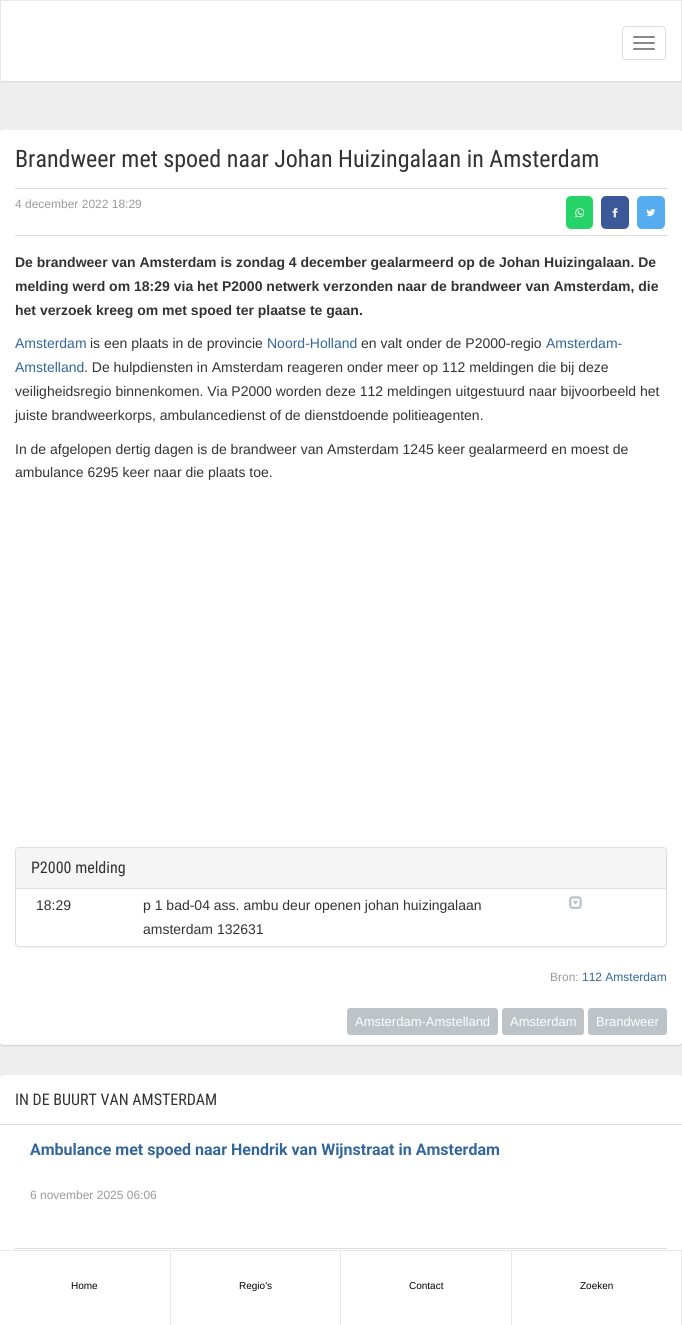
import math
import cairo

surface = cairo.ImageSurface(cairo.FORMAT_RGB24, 682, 1325)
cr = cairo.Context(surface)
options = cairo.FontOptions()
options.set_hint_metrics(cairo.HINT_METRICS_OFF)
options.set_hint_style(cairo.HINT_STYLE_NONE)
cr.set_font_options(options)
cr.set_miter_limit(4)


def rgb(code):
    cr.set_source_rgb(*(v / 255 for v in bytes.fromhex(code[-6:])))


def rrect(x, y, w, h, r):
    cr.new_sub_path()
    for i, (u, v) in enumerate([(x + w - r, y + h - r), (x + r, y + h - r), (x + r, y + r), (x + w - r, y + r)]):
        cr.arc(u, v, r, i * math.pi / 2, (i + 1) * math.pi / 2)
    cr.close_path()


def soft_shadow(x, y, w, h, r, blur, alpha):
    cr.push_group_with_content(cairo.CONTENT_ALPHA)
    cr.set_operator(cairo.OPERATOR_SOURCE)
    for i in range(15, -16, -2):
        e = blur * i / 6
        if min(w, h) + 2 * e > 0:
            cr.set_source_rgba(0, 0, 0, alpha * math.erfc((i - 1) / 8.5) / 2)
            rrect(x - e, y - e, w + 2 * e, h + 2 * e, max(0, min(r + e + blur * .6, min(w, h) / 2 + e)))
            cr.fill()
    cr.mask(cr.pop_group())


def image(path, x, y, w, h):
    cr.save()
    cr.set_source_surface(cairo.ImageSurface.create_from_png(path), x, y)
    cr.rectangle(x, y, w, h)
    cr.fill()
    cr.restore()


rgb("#eeeeee")
cr.paint()
rgb("#ffffff")
cr.rectangle(1, 1, 680, 80)
cr.fill()
cr.rectangle(0.5, 0.5, 681, 82)
rgb("#e7e7e7")
cr.set_line_width(1)
cr.stroke()
rgb("#dddddd")
cr.rectangle(1, 81, 680, 1)
cr.fill()
rrect(622.5, 26.5, 43, 33, 3.5)
cr.stroke()
rgb("#888888")
rrect(633, 36, 22, 2, 1)
cr.fill()
rrect(633, 42, 22, 2, 1)
cr.fill()
rrect(633, 48, 22, 2, 1)
cr.fill()
rgb("#b4b4b4")
soft_shadow(0, 131, 682, 915, 3, 0.5, 0.5)
rgb("#ffffff")
rrect(0, 130, 682, 915, 3)
cr.fill()
rgb("#dddddd")
cr.rectangle(15, 188, 652, 1)
cr.fill()
cr.rectangle(15, 235, 652, 1)
cr.fill()
rgb("#25d366")
rrect(566, 196, 27, 33, 5)
cr.fill()
image("img/1.png", 575, 208, 9, 10)
rgb("#3b5998")
rrect(601, 196, 28, 33, 5)
cr.fill()
image("img/2.png", 612, 208, 6, 10)
rgb("#55acee")
rrect(637, 196, 28, 33, 5)
cr.fill()
image("img/3.png", 646, 209, 10, 8)
rgb("#000000")
soft_shadow(15, 848, 652, 100, 4, 0.5, 0.05)
rgb("#ffffff")
rrect(15.5, 847.5, 651, 99, 3.5)
cr.fill_preserve()
rgb("#dddddd")
cr.stroke()
rgb("#f5f5f5")
cr.new_path()
cr.move_to(19, 848)
cr.line_to(663, 848)
cr.curve_to(664.5, 848, 666, 849.5, 666, 851)
cr.line_to(666, 889)
cr.line_to(16, 889)
cr.line_to(16, 851)
cr.curve_to(16, 849.5, 17.5, 848, 19, 848)
cr.close_path()
cr.fill()
rgb("#dddddd")
cr.rectangle(16, 888, 650, 1)
cr.fill()
image("img/4.png", 569, 896, 13, 13)
rgb("#bdc3c7")
rrect(347, 1008, 151, 27, 3)
cr.fill()
rrect(502, 1008, 82, 27, 3)
cr.fill()
rrect(588, 1008, 79, 27, 3)
cr.fill()
rgb("#ffffff")
rrect(0, 1075, 682, 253, 3)
cr.fill()
for x, y, w, h, color in [
    (0, 1124, 682, 1, "#dddddd"),
    (15, 1248, 652, 1, "#dddddd"),
    (0, 1250, 682, 1, "#e7e7e7"),
    (170, 1251, 1, 74, "#e7e7e7"),
    (340, 1251, 1, 74, "#e7e7e7"),
    (511, 1251, 1, 74, "#e7e7e7"),
    (681, 1251, 1, 74, "#e7e7e7"),
]:
    rgb(color)
    cr.rectangle(x, y, w, h)
    cr.fill()
cr.select_font_face("Roboto Condensed")
cr.set_font_size(24)
rgb("#333333")
cr.move_to(15, 167)
cr.show_text("Brandweer met spoed naar Johan Huizingalaan in Amsterdam")
cr.select_font_face("Liberation Sans")
cr.set_font_size(12)
rgb("#9a9a9a")
cr.move_to(15, 208)
cr.show_text("4 december 2022 18:29")
cr.select_font_face("Liberation Sans", cairo.FONT_SLANT_NORMAL, cairo.FONT_WEIGHT_BOLD)
cr.set_font_size(14)
rgb("#333333")
for x, y, s in [
    (15, 267, "De brandweer van Amsterdam is zondag 4 december gealarmeerd op de Johan Huizingalaan. De"),
    (15, 291, "melding werd om 18:29 via het P2000 netwerk verzonden naar de brandweer van Amsterdam, die"),
    (15, 315, "het verzoek kreeg om met spoed ter plaatse te gaan."),
]:
    cr.move_to(x, y)
    cr.show_text(s)
cr.select_font_face("Liberation Sans")
rgb("#336699")
cr.move_to(15, 348)
cr.show_text("Amsterdam")
rgb("#333333")
cr.move_to(90, 348)
cr.show_text("is een plaats in de provincie")
rgb("#336699")
cr.move_to(267, 348)
cr.show_text("Noord-Holland")
rgb("#333333")
cr.move_to(361, 348)
cr.show_text("en valt onder de P2000-regio")
rgb("#336699")
cr.move_to(546, 348)
cr.show_text("Amsterdam-")
cr.move_to(15, 372)
cr.show_text("Amstelland")
rgb("#333333")
for x, y, s in [
    (84, 372, ". De hulpdiensten in Amsterdam reageren onder meer op 112 meldingen die bij deze"),
    (15, 396, "veiligheidsregio binnenkomen. Via P2000 worden deze 112 meldingen uitgestuurd naar bijvoorbeeld het"),
    (15, 420, "juiste brandweerkorps, ambulancedienst of de dienstdoende politieagenten."),
    (15, 454, "In de afgelopen dertig dagen is de brandweer van Amsterdam 1245 keer gealarmeerd en moest de"),
    (15, 477, "ambulance 6295 keer naar die plaats toe."),
]:
    cr.move_to(x, y)
    cr.show_text(s)
cr.select_font_face("Roboto Condensed")
cr.set_font_size(16)
cr.move_to(31, 873)
cr.show_text("P2000 melding")
cr.select_font_face("Liberation Sans")
cr.set_font_size(14)
for x, y, s in [
    (36, 910, "18:29"),
    (143, 910, "p 1 bad-04 ass. ambu deur openen johan huizingalaan"),
    (143, 934, "amsterdam 132631"),
]:
    cr.move_to(x, y)
    cr.show_text(s)
cr.set_font_size(12)
rgb("#9a9a9a")
cr.move_to(550, 981)
cr.show_text("Bron:")
rgb("#336699")
cr.move_to(582, 981)
cr.show_text("112 Amsterdam")
cr.set_font_size(13)
rgb("#ffffff")
for x, y, s in [
    (355, 1026, "Amsterdam-Amstelland"),
    (510, 1026, "Amsterdam"),
    (596, 1026, "Brandweer"),
]:
    cr.move_to(x, y)
    cr.show_text(s)
cr.select_font_face("Roboto Condensed")
cr.set_font_size(16)
rgb("#333333")
cr.move_to(15, 1105)
cr.show_text("IN DE BUURT VAN AMSTERDAM")
cr.select_font_face("Roboto", cairo.FONT_SLANT_NORMAL, cairo.FONT_WEIGHT_BOLD)
rgb("#336699")
cr.move_to(30, 1155)
cr.show_text("Ambulance met spoed naar Hendrik van Wijnstraat in Amsterdam")
cr.select_font_face("Liberation Sans")
cr.set_font_size(12)
rgb("#9a9a9a")
cr.move_to(30, 1199)
cr.show_text("6 november 2025 06:06")
cr.set_font_size(10)
rgb("#000000")
for x, y, s in [
    (71, 1289, "Home"),
    (239, 1289, "Regio's"),
    (409, 1289, "Contact"),
    (580, 1289, "Zoeken"),
]:
    cr.move_to(x, y)
    cr.show_text(s)
surface.write_to_png("page.png")
